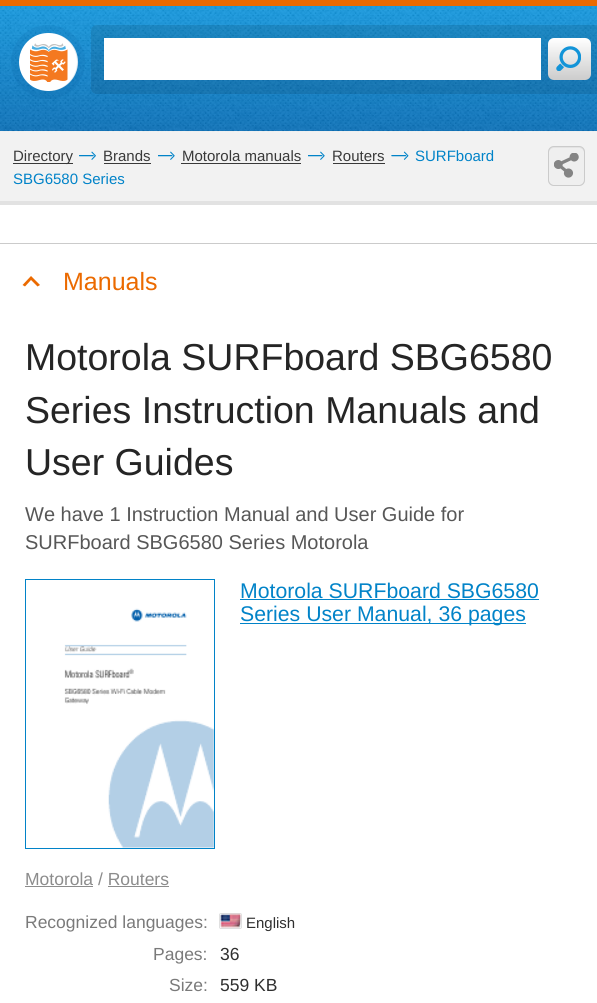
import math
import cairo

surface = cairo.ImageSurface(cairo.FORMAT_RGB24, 597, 1003)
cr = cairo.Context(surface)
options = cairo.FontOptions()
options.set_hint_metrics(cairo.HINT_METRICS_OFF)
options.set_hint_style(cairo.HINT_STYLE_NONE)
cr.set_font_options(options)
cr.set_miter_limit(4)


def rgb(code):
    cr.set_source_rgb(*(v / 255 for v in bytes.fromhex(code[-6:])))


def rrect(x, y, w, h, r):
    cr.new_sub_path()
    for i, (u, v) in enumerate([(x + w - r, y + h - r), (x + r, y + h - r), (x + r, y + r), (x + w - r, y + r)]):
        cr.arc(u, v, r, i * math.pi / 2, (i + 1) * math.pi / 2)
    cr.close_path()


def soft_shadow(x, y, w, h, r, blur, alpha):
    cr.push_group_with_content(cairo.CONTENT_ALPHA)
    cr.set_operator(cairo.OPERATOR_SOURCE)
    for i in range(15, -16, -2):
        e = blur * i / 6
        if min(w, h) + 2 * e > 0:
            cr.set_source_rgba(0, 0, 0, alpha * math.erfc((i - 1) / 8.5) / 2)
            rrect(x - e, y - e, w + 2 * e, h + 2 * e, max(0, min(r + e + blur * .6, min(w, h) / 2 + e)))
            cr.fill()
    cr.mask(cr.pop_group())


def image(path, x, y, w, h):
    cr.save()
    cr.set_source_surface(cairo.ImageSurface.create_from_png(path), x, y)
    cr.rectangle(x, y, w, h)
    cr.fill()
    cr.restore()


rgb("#ffffff")
cr.paint()
gradient = cairo.LinearGradient(299, 6.2, 299, 131)
gradient.add_color_stop_rgba(0, 0.055, 0.588, 0.871, 1)
gradient.add_color_stop_rgba(1, 0.016, 0.427, 0.718, 1)
cr.set_source(gradient)
cr.rectangle(0, 6, 597, 125)
cr.fill()
rgb("#eb6a00")
cr.rectangle(0, 0, 597, 6)
cr.fill()
rgb("#f2f2f2")
cr.rectangle(0, 131, 597, 70)
cr.fill()
image("img/1.png", 0, 6, 597, 126)
rgb("#ffffff")
rrect(19, 33, 59, 58, 29)
cr.fill()
cr.arc(48, 62, 33, 0, 2 * math.pi)
cr.set_source_rgba(0, 0.353, 0.6, 0.14)
cr.set_line_width(8)
cr.stroke()
image("img/2.png", 30, 43, 38, 39)
cr.set_source_rgba(0, 0, 0, 0.1)
cr.new_path()
cr.move_to(97, 25)
cr.line_to(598, 25)
cr.line_to(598, 94)
cr.line_to(97, 94)
cr.curve_to(93.5, 94, 91, 91.5, 91, 88)
cr.line_to(91, 31)
cr.curve_to(91, 27.5, 93.5, 25, 97, 25)
cr.close_path()
cr.fill()
rgb("#ffffff")
cr.rectangle(104, 38, 437, 42)
cr.fill()
gradient = cairo.LinearGradient(569, 80, 569, 38)
gradient.add_color_stop_rgba(0, 0.8, 0.8, 0.8, 1)
gradient.add_color_stop_rgba(1, 1, 1, 1, 1)
cr.set_source(gradient)
rrect(548, 38, 43, 42, 6)
cr.fill()
image("img/3.png", 556, 46, 25, 25)
rgb("#e2e2e2")
cr.rectangle(0, 201, 597, 4)
cr.fill()
rgb("#393939")
cr.rectangle(13, 163, 60, 1)
cr.fill()
image("img/4.png", 79, 151, 17, 9)
cr.rectangle(104, 163, 47, 1)
cr.fill()
image("img/5.png", 158, 151, 17, 9)
cr.rectangle(181, 163, 120, 1)
cr.fill()
image("img/5.png", 308, 151, 17, 9)
cr.rectangle(333, 163, 52, 1)
cr.fill()
image("img/6.png", 391, 151, 18, 9)
rgb("#e3e3e3")
rrect(548, 146, 37, 40, 6)
cr.fill()
rgb("#efefef")
rrect(549, 148, 35, 37, 5)
cr.fill()
rrect(548.5, 146.5, 36, 39, 5.5)
rgb("#cbcbcb")
cr.set_line_width(1)
cr.stroke()
image("img/7.png", 554, 153, 25, 25)
cr.rectangle(0, 243, 597, 1)
cr.fill()
rgb("#eb6a00")
cr.new_path()
cr.move_to(40, 285)
cr.line_to(31, 276)
cr.line_to(22.5, 285)
cr.line_to(25, 286.5)
cr.line_to(31, 280)
cr.line_to(37.5, 286.5)
cr.close_path()
cr.fill()
cr.rectangle(25.5, 579.5, 189, 269)
rgb("#0183c8")
cr.stroke()
image("img/8.png", 64, 608, 150, 240)
for x, y, w, h, color in [
    (240, 599, 299, 1, "#0183c8"),
    (240, 623, 286, 1, "#0183c8"),
    (25, 886, 68, 1, "#8c8c8c"),
    (108, 886, 61, 1, "#8c8c8c"),
]:
    rgb(color)
    cr.rectangle(x, y, w, h)
    cr.fill()
cr.save()
cr.set_fill_rule(cairo.FILL_RULE_EVEN_ODD)
cr.new_path()
cr.move_to(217, 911)
cr.line_to(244, 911)
cr.line_to(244, 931)
cr.line_to(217, 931)
cr.close_path()
cr.move_to(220, 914)
cr.line_to(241, 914)
cr.line_to(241, 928)
cr.line_to(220, 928)
cr.close_path()
cr.clip()
rgb("#000000")
soft_shadow(220, 914, 21, 14, 0, 0.5, 0.5)
cr.restore()
image("img/9.png", 220, 913, 22, 15)
cr.select_font_face("Liberation Sans")
cr.set_font_size(15)
rgb("#393939")
for x, y, s in [
    (13, 161, "Directory"),
    (103, 161, "Brands"),
    (182, 161, "Motorola manuals"),
    (332, 161, "Routers"),
]:
    cr.move_to(x, y)
    cr.show_text(s)
rgb("#0183c8")
cr.move_to(415, 161)
cr.show_text("SURFboard")
cr.move_to(13, 184)
cr.show_text("SBG6580 Series")
cr.set_font_size(25)
rgb("#eb6a00")
cr.move_to(63, 290)
cr.show_text("Manuals")
cr.set_font_size(37.5)
rgb("#252525")
for x, y, s in [
    (25, 370, "Motorola SURFboard SBG6580"),
    (25, 423, "Series Instruction Manuals and"),
    (25, 475, "User Guides"),
]:
    cr.move_to(x, y)
    cr.show_text(s)
cr.set_font_size(20)
rgb("#575757")
cr.move_to(25, 521)
cr.show_text("We have 1 Instruction Manual and User Guide for")
cr.move_to(25, 549)
cr.show_text("SURFboard SBG6580 Series Motorola")
cr.set_font_size(21.25)
rgb("#0183c8")
cr.move_to(240, 598)
cr.show_text("Motorola SURFboard SBG6580")
cr.move_to(240, 621)
cr.show_text("Series User Manual, 36 pages")
cr.set_font_size(17.5)
rgb("#8c8c8c")
cr.move_to(25, 885)
cr.show_text("Motorola / Routers")
rgb("#7a7a7a")
cr.move_to(25, 928)
cr.show_text("Recognized languages:")
cr.set_font_size(15)
rgb("#2f2f2f")
cr.move_to(246, 928)
cr.show_text("English")
cr.set_font_size(17.5)
rgb("#7a7a7a")
cr.move_to(153, 960)
cr.show_text("Pages:")
rgb("#2f2f2f")
cr.move_to(220, 960)
cr.show_text("36")
rgb("#7a7a7a")
cr.move_to(169, 991)
cr.show_text("Size:")
rgb("#2f2f2f")
cr.move_to(220, 991)
cr.show_text("559 KB")
surface.write_to_png("page.png")
